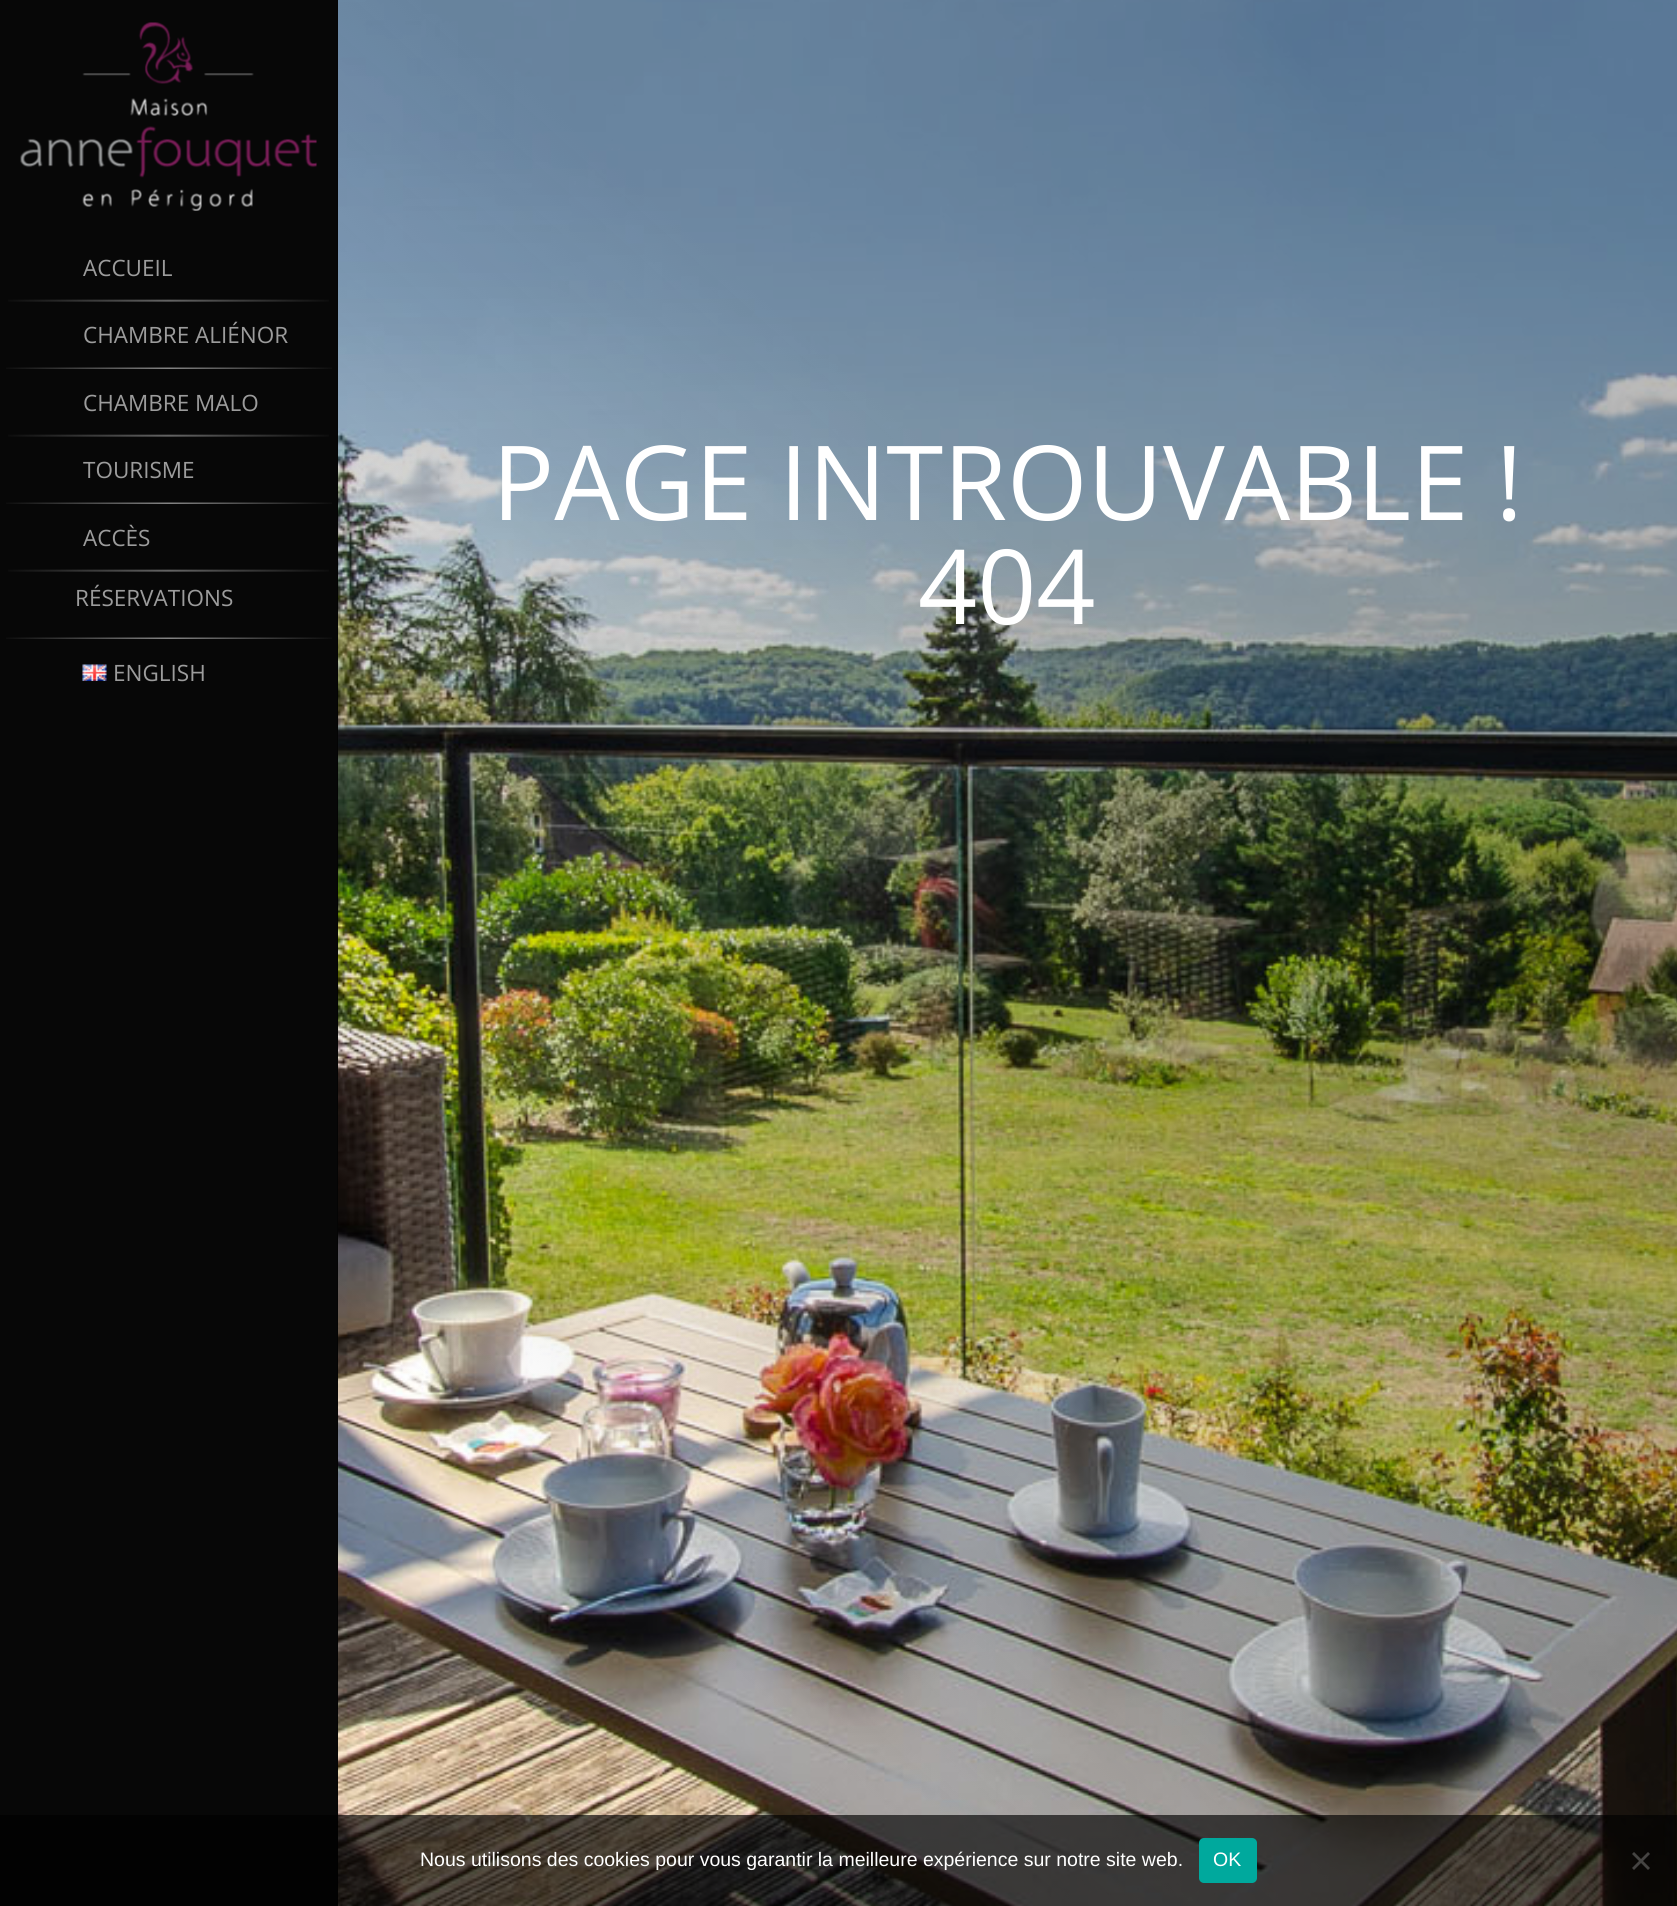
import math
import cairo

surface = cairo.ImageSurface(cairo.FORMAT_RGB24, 1677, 1906)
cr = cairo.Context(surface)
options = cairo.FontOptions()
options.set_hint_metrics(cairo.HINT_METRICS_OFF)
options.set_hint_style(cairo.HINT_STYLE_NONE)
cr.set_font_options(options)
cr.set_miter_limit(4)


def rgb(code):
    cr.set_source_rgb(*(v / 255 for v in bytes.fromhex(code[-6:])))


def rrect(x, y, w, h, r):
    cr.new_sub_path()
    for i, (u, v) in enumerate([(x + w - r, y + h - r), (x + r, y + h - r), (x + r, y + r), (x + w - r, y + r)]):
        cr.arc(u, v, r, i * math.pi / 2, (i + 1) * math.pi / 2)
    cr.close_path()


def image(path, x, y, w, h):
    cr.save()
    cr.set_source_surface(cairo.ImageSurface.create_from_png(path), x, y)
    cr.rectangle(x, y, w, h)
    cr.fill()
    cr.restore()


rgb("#ffffff")
cr.paint()
image("img/5.png", 337, 0, 1340, 1906)
cr.set_source_rgba(0, 0, 0, 0.97)
cr.rectangle(0, 0, 338, 1906)
cr.fill()
image("img/1.png", 20, 22, 297, 189)
image("img/2.png", 8, 299, 321, 3)
image("img/3.png", 6, 367, 326, 2)
image("img/2.png", 8, 434, 321, 3)
image("img/3.png", 6, 502, 326, 2)
image("img/2.png", 8, 569, 321, 3)
image("img/3.png", 6, 637, 326, 2)
cr.new_path()
cr.move_to(-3.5, 541)
cr.line_to(364, 573)
cr.line_to(359, 627)
cr.line_to(-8.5, 594.5)
cr.close_path()
cr.set_source_rgba(0, 0, 0, 0.04)
cr.set_line_width(1.5)
cr.stroke()
image("img/4.png", 82, 664, 25, 17)
cr.set_source_rgba(0, 0, 0, 0.65)
cr.rectangle(0, 1815, 1677, 91)
cr.fill()
rgb("#00a99d")
rrect(1199, 1838, 58, 45, 5)
cr.fill()
rgb("#454342")
cr.new_path()
cr.move_to(1648, 1852)
cr.line_to(1650, 1854)
cr.line_to(1634, 1870)
cr.line_to(1632, 1868)
cr.close_path()
cr.fill()
rgb("#454442")
cr.new_path()
cr.move_to(1632, 1854)
cr.line_to(1634, 1852)
cr.line_to(1650, 1868)
cr.line_to(1648, 1870)
cr.close_path()
cr.fill()
cr.select_font_face("Open Sans")
cr.set_font_size(22.5)
rgb("#9c9c9c")
for x, y, s in [
    (83, 276, "ACCUEIL"),
    (83, 343, "CHAMBRE ALIÉNOR"),
    (83, 411, "CHAMBRE MALO"),
    (83, 478, "TOURISME"),
    (83, 546, "ACCÈS"),
    (75, 606, "RÉSERVATIONS"),
    (113, 681, "ENGLISH"),
]:
    cr.move_to(x, y)
    cr.show_text(s)
cr.set_font_size(103.5)
rgb("#ffffff")
cr.move_to(492, 520)
cr.show_text("PAGE INTROUVABLE !")
cr.move_to(918, 624)
cr.show_text("404")
cr.select_font_face("Liberation Sans")
cr.set_font_size(19.5)
cr.move_to(420, 1866)
cr.show_text("Nous utilisons des cookies pour vous garantir la meilleure expérience sur notre site web.")
cr.move_to(1213, 1866)
cr.show_text("OK")
surface.write_to_png("page.png")
